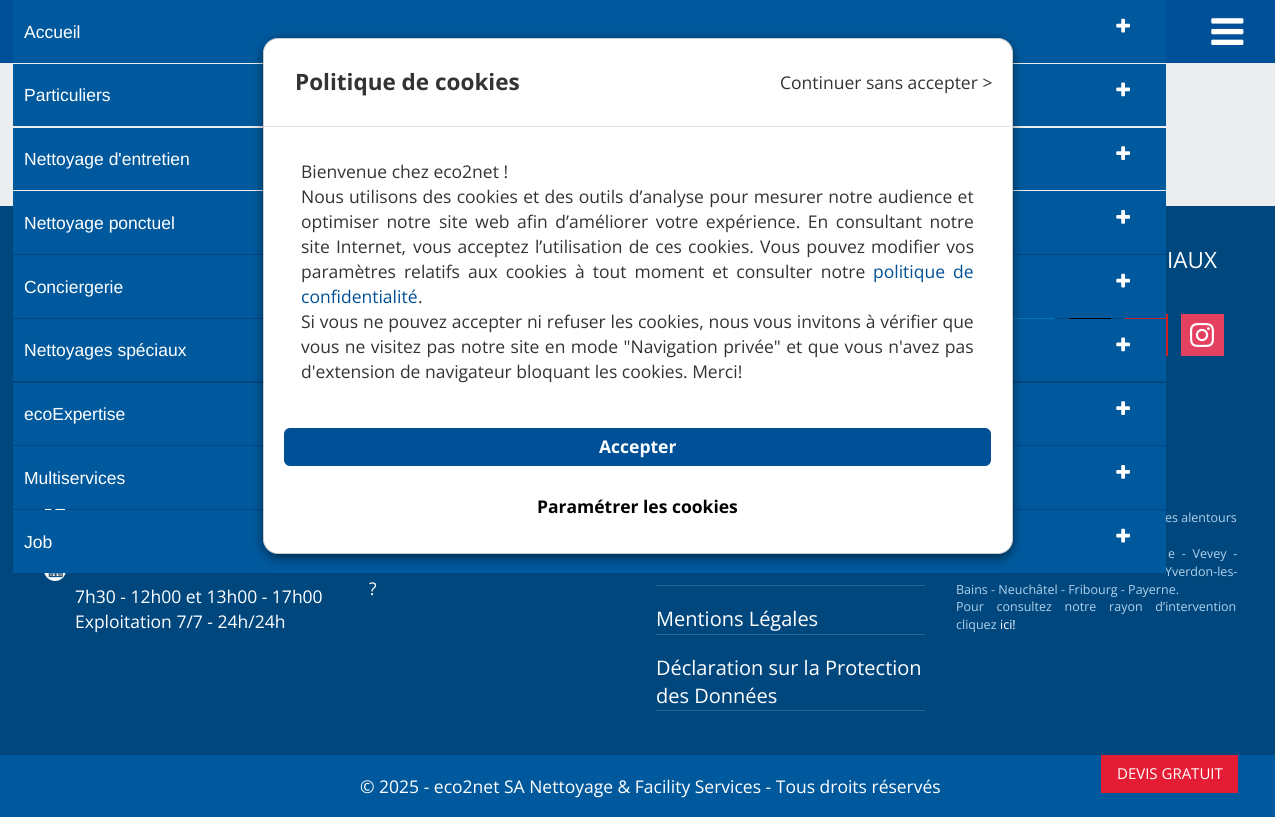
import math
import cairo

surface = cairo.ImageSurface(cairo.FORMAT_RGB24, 1275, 817)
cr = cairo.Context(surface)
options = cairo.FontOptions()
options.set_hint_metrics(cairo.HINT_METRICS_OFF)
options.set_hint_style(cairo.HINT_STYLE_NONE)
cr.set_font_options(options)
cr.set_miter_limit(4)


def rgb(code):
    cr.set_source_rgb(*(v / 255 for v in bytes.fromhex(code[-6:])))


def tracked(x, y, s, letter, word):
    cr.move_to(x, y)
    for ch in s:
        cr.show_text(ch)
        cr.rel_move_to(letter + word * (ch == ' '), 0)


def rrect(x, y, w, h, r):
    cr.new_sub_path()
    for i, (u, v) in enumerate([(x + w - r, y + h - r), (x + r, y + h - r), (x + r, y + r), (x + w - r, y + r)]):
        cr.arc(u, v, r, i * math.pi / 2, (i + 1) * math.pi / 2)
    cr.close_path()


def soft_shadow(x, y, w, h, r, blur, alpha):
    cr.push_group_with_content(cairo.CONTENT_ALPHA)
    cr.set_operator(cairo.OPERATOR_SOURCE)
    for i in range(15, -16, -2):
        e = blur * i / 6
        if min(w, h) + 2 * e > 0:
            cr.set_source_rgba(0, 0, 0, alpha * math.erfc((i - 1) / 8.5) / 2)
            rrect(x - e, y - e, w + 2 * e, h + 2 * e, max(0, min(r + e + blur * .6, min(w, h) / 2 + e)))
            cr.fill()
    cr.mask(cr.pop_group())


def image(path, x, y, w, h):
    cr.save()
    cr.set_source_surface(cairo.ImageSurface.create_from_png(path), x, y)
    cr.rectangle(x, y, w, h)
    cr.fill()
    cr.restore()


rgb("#ecedef")
cr.paint()
rgb("#005097")
cr.rectangle(0, 0, 1275, 63)
cr.fill()
rgb("#00599d")
cr.rectangle(13, 0, 1153, 63)
cr.fill()
image("img/1.png", 1116, 18, 14, 15)
cr.rectangle(13, 64, 1153, 62)
cr.fill()
image("img/2.png", 1116, 82, 14, 15)
cr.rectangle(13, 128, 1153, 62)
cr.fill()
image("img/3.png", 1116, 146, 14, 14)
rgb("#00477e")
cr.rectangle(0, 206, 1275, 549)
cr.fill()
rgb("#00599d")
cr.rectangle(13, 191, 1153, 63)
cr.fill()
image("img/4.png", 1116, 210, 14, 14)
rgb("#cd201f")
cr.rectangle(1125, 314, 43, 42)
cr.fill()
rgb("#00599d")
cr.rectangle(13, 255, 1153, 63)
cr.fill()
image("img/1.png", 1116, 273, 14, 15)
cr.rectangle(13, 319, 1153, 62)
cr.fill()
image("img/2.png", 1116, 337, 14, 15)
cr.rectangle(13, 383, 1153, 62)
cr.fill()
image("img/3.png", 1116, 401, 14, 14)
rgb("#ffffff")
cr.arc(55, 514, 11, 0, 2 * math.pi)
cr.fill()
rgb("#00599d")
cr.rectangle(13, 446, 1153, 63)
cr.fill()
image("img/4.png", 1116, 465, 14, 14)
image("img/5.png", 1211, 18, 33, 27)
image("img/6.png", 51, 509, 5, 1)
rgb("#ffffff")
cr.arc(55, 570, 11, 0, 2 * math.pi)
cr.fill()
image("img/8.png", 49, 573, 13, 4)
image("img/7.png", 48, 573, 15, 5)
for x, y, w, h, color in [
    (656, 585, 269, 1, "#296696"),
    (656, 634, 269, 1, "#296696"),
    (656, 710, 269, 1, "#296696"),
    (1013, 318, 42, 1, "#0077b5"),
    (1069, 318, 42, 1, "#000000"),
    (1181, 314, 43, 42, "#e4405f"),
]:
    rgb(color)
    cr.rectangle(x, y, w, h)
    cr.fill()
image("img/9.png", 1190, 323, 24, 24)
rgb("#00599d")
cr.rectangle(0, 755, 1275, 62)
cr.fill()
rgb("#e51d34")
cr.rectangle(1101, 755, 137, 38)
cr.fill()
cr.select_font_face("Liberation Sans")
cr.set_font_size(17.5)
rgb("#ffffff")
for x, y, s in [
    (24, 38, "Accueil"),
    (24, 101, "Particuliers"),
    (24, 165, "Nettoyage d'entretien"),
    (24, 229, "Nettoyage ponctuel"),
    (24, 293, "Conciergerie"),
    (24, 356, "Nettoyages spéciaux"),
    (24, 420, "ecoExpertise"),
    (24, 484, "Multiservices"),
]:
    cr.move_to(x, y)
    cr.show_text(s)
cr.select_font_face("Open Sans")
for x, y, s in [
    (75, 603, "7h30 - 12h00 et 13h00 - 17h00"),
    (75, 628, "Exploitation 7/7 - 24h/24h"),
    (369, 595, "?"),
]:
    cr.move_to(x, y)
    cr.show_text(s)
cr.set_font_size(20)
for x, y, s in [
    (656, 626, "Mentions Légales"),
    (656, 675, "Déclaration sur la Protection"),
    (656, 703, "des Données"),
]:
    cr.move_to(x, y)
    cr.show_text(s)
cr.set_font_size(22.5)
cr.move_to(1167, 268)
cr.show_text("IAUX")
cr.set_font_size(12.5)
rgb("#afd1eb")
cr.move_to(1165, 522)
cr.show_text("es alentours")
tracked(1168, 558, "e - Vevey -", 0, 3.5)
cr.move_to(1165, 576)
cr.show_text("Yverdon-les-")
rgb("#00599d")
cr.rectangle(13, 510, 1153, 63)
cr.fill()
image("img/1.png", 1116, 528, 14, 15)
cr.select_font_face("Liberation Sans")
cr.set_font_size(17.5)
rgb("#ffffff")
cr.move_to(24, 548)
cr.show_text("Job")
cr.select_font_face("Open Sans")
cr.set_font_size(12.5)
rgb("#afd1eb")
cr.move_to(956, 594)
cr.show_text("Bains - Neuchâtel - Fribourg - Payerne.")
tracked(956, 611, "Pour consultez notre rayon d’intervention", 0, 9.5)
cr.move_to(956, 629)
cr.show_text("cliquez")
rgb("#ffffff")
cr.move_to(1000, 629)
cr.show_text("ici!")
cr.set_font_size(17.5)
cr.move_to(360, 793)
cr.show_text("© 2025 - eco2net SA Nettoyage & Facility Services - Tous droits réservés")
cr.set_font_size(15)
cr.move_to(1117, 779)
cr.show_text("DEVIS GRATUIT")
rgb("#000000")
soft_shadow(263, 41, 750, 517, 15, 5.5, 0.5)
rgb("#ffffff")
rrect(263, 38, 750, 516, 15)
cr.fill()
rrect(263.5, 38.5, 749, 515, 14.5)
cr.set_source_rgba(0, 0, 0, 0.2)
cr.set_line_width(1)
cr.stroke()
rgb("#e5e5e5")
cr.rectangle(264, 126, 747, 1)
cr.fill()
cr.select_font_face("Open Sans", cairo.FONT_SLANT_NORMAL, cairo.FONT_WEIGHT_BOLD)
cr.set_font_size(22.5)
rgb("#333333")
cr.move_to(295, 90)
cr.show_text("Politique de cookies")
cr.select_font_face("Open Sans")
cr.set_font_size(17.5)
cr.move_to(780, 89)
cr.show_text("Continuer sans accepter >")
cr.move_to(301, 178)
cr.show_text("Bienvenue chez eco2net !")
tracked(301, 203, "Nous utilisons des cookies et des outils d’analyse pour mesurer notre audience et", 0, 0.75)
tracked(301, 228, "optimiser notre", 0, 3)
tracked(439, 228, "site web afin d’améliorer votre expérience. En consultant notre", 0, 3)
tracked(301, 253, "site Internet,", 0, 1.6)
tracked(413, 253, "vous acceptez l’utilisation de ces cookies. Vous pouvez modifier vos", 0, 1.6)
tracked(301, 278, "paramètres relatifs", 0, 3.5)
tracked(468, 278, "aux cookies à tout moment et consulter notre", 0, 3.5)
rgb("#005097")
tracked(873, 278, "politique de", 0, 3.5)
cr.move_to(301, 303)
cr.show_text("confidentialité")
rgb("#333333")
cr.move_to(418, 303)
cr.show_text(".")
tracked(301, 328, "Si vous ne pouvez accepter ni refuser les cookies, nous vous invitons à vérifier que", 0, 0.25)
tracked(301, 353, "vous ne visitez pas notre site en mode \"Navigation privée\" et que vous n'avez pas", 0, 0.9)
cr.move_to(301, 378)
cr.show_text("d'extension de navigateur bloquant les cookies. Merci!")
rgb("#005097")
rrect(284, 428, 707, 38, 6)
cr.fill()
cr.select_font_face("Open Sans", cairo.FONT_SLANT_NORMAL, cairo.FONT_WEIGHT_BOLD)
rgb("#ffffff")
cr.move_to(599, 453)
cr.show_text("Accepter")
rgb("#000000")
cr.move_to(537, 513)
cr.show_text("Paramétrer les cookies")
surface.write_to_png("page.png")
